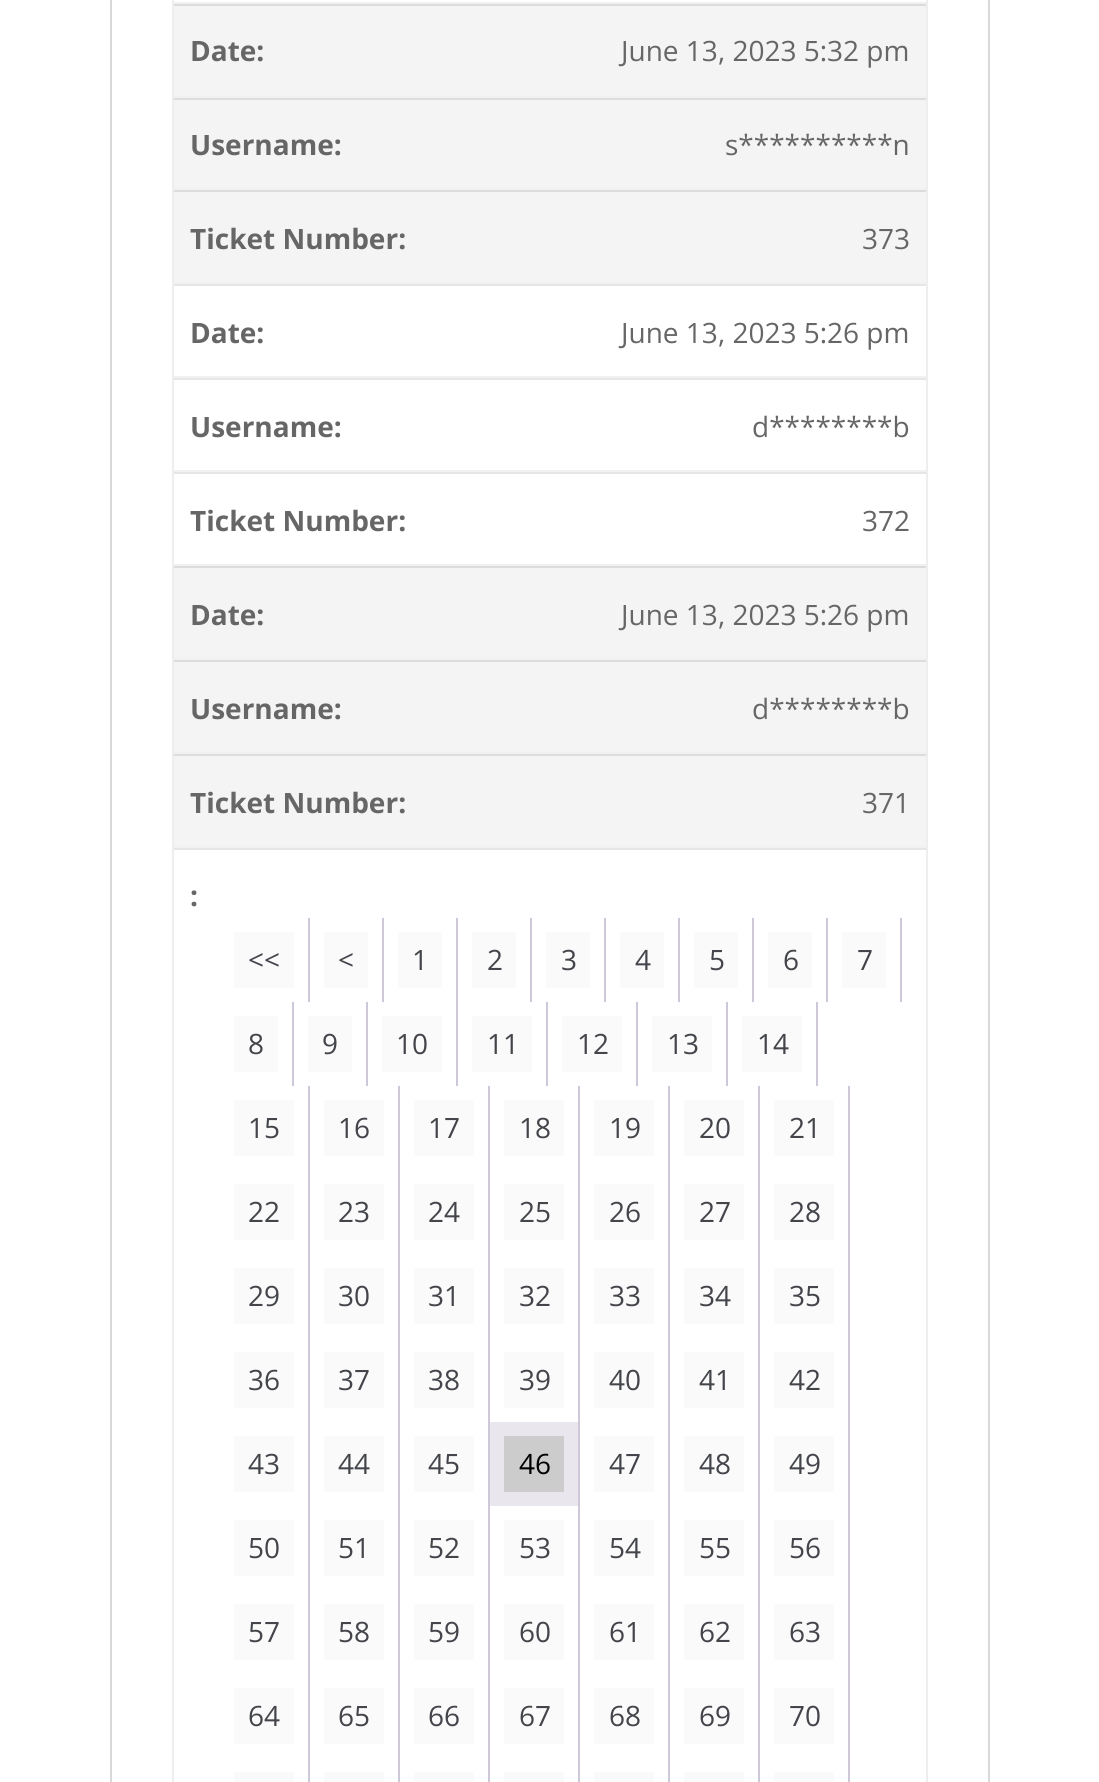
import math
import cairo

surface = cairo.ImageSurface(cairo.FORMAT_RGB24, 1099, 1782)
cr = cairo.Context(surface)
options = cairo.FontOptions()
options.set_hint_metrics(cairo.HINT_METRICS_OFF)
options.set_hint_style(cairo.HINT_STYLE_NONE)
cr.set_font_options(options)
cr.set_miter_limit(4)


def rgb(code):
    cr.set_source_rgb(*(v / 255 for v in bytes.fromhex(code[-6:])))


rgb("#ffffff")
cr.paint()
cr.rectangle(111, -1, 878, 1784)
rgb("#d9d9d9")
cr.stroke()
cr.rectangle(173, -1, 754, 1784)
rgb("#eeeeee")
cr.stroke()
for x, y, w, h, color in [
    (174, 2, 752, 2, "#f1f1f1"),
    (174, 6, 752, 90, "#f4f4f4"),
    (174, 4, 752, 2, "#dcdcdc"),
    (174, 96, 752, 2, "#f1f1f1"),
    (174, 100, 752, 88, "#f4f4f4"),
    (174, 98, 752, 2, "#dcdcdc"),
    (174, 188, 752, 2, "#f1f1f1"),
    (174, 192, 752, 90, "#f4f4f4"),
    (174, 190, 752, 2, "#dcdcdc"),
    (174, 282, 752, 2, "#f1f1f1"),
    (174, 284, 752, 2, "#e6e6e6"),
    (174, 376, 752, 2, "#f1f1f1"),
    (174, 378, 752, 2, "#e6e6e6"),
    (174, 470, 752, 2, "#f1f1f1"),
    (174, 472, 752, 2, "#e6e6e6"),
    (174, 564, 752, 2, "#f1f1f1"),
    (174, 568, 752, 90, "#f4f4f4"),
    (174, 566, 752, 2, "#dcdcdc"),
    (174, 658, 752, 2, "#f1f1f1"),
    (174, 662, 752, 90, "#f4f4f4"),
    (174, 660, 752, 2, "#dcdcdc"),
    (174, 752, 752, 2, "#f1f1f1"),
    (174, 756, 752, 90, "#f4f4f4"),
    (174, 754, 752, 2, "#dcdcdc"),
    (174, 846, 752, 2, "#f1f1f1"),
    (174, 848, 752, 2, "#e6e6e6"),
    (308, 918, 2, 84, "#cfc8d8"),
    (234, 932, 60, 56, "#fafafa"),
    (382, 918, 2, 84, "#cfc8d8"),
    (324, 932, 44, 56, "#fafafa"),
    (456, 918, 2, 168, "#cfc8d8"),
    (398, 932, 44, 56, "#fafafa"),
    (530, 918, 2, 84, "#cfc8d8"),
    (472, 932, 44, 56, "#fafafa"),
    (604, 918, 2, 84, "#cfc8d8"),
    (546, 932, 44, 56, "#fafafa"),
    (678, 918, 2, 84, "#cfc8d8"),
    (620, 932, 44, 56, "#fafafa"),
    (752, 918, 2, 84, "#cfc8d8"),
    (694, 932, 44, 56, "#fafafa"),
    (826, 918, 2, 84, "#cfc8d8"),
    (768, 932, 44, 56, "#fafafa"),
    (900, 918, 2, 84, "#cfc8d8"),
    (842, 932, 44, 56, "#fafafa"),
    (292, 1002, 2, 84, "#cfc8d8"),
    (234, 1016, 44, 56, "#fafafa"),
    (366, 1002, 2, 84, "#cfc8d8"),
    (308, 1016, 44, 56, "#fafafa"),
    (382, 1016, 60, 56, "#fafafa"),
    (546, 1002, 2, 84, "#cfc8d8"),
    (472, 1016, 60, 56, "#fafafa"),
    (636, 1002, 2, 84, "#cfc8d8"),
    (562, 1016, 60, 56, "#fafafa"),
    (726, 1002, 2, 84, "#cfc8d8"),
    (652, 1016, 60, 56, "#fafafa"),
    (816, 1002, 2, 84, "#cfc8d8"),
    (742, 1016, 60, 56, "#fafafa"),
    (308, 1086, 2, 696, "#cfc8d8"),
    (234, 1100, 60, 56, "#fafafa"),
    (398, 1086, 2, 696, "#cfc8d8"),
    (324, 1100, 60, 56, "#fafafa"),
    (488, 1086, 2, 696, "#cfc8d8"),
    (414, 1100, 60, 56, "#fafafa"),
    (578, 1086, 2, 696, "#cfc8d8"),
    (504, 1100, 60, 56, "#fafafa"),
    (668, 1086, 2, 696, "#cfc8d8"),
    (594, 1100, 60, 56, "#fafafa"),
    (758, 1086, 2, 696, "#cfc8d8"),
    (684, 1100, 60, 56, "#fafafa"),
    (848, 1086, 2, 696, "#cfc8d8"),
    (774, 1100, 60, 56, "#fafafa"),
    (234, 1184, 60, 56, "#fafafa"),
    (324, 1184, 60, 56, "#fafafa"),
    (414, 1184, 60, 56, "#fafafa"),
    (504, 1184, 60, 56, "#fafafa"),
    (594, 1184, 60, 56, "#fafafa"),
    (684, 1184, 60, 56, "#fafafa"),
    (774, 1184, 60, 56, "#fafafa"),
    (234, 1268, 60, 56, "#fafafa"),
    (324, 1268, 60, 56, "#fafafa"),
    (414, 1268, 60, 56, "#fafafa"),
    (504, 1268, 60, 56, "#fafafa"),
    (594, 1268, 60, 56, "#fafafa"),
    (684, 1268, 60, 56, "#fafafa"),
    (774, 1268, 60, 56, "#fafafa"),
    (234, 1352, 60, 56, "#fafafa"),
    (324, 1352, 60, 56, "#fafafa"),
    (414, 1352, 60, 56, "#fafafa"),
    (504, 1352, 60, 56, "#fafafa"),
    (594, 1352, 60, 56, "#fafafa"),
    (684, 1352, 60, 56, "#fafafa"),
    (774, 1352, 60, 56, "#fafafa"),
    (234, 1436, 60, 56, "#fafafa"),
    (324, 1436, 60, 56, "#fafafa"),
    (414, 1436, 60, 56, "#fafafa"),
    (490, 1422, 88, 84, "#e9e6ed"),
    (504, 1436, 60, 56, "#cccccc"),
    (594, 1436, 60, 56, "#fafafa"),
    (684, 1436, 60, 56, "#fafafa"),
    (774, 1436, 60, 56, "#fafafa"),
    (234, 1520, 60, 56, "#fafafa"),
    (324, 1520, 60, 56, "#fafafa"),
    (414, 1520, 60, 56, "#fafafa"),
    (504, 1520, 60, 56, "#fafafa"),
    (594, 1520, 60, 56, "#fafafa"),
    (684, 1520, 60, 56, "#fafafa"),
    (774, 1520, 60, 56, "#fafafa"),
    (234, 1604, 60, 56, "#fafafa"),
    (324, 1604, 60, 56, "#fafafa"),
    (414, 1604, 60, 56, "#fafafa"),
    (504, 1604, 60, 56, "#fafafa"),
    (594, 1604, 60, 56, "#fafafa"),
    (684, 1604, 60, 56, "#fafafa"),
    (774, 1604, 60, 56, "#fafafa"),
    (234, 1688, 60, 56, "#fafafa"),
    (324, 1688, 60, 56, "#fafafa"),
    (414, 1688, 60, 56, "#fafafa"),
    (504, 1688, 60, 56, "#fafafa"),
    (594, 1688, 60, 56, "#fafafa"),
    (684, 1688, 60, 56, "#fafafa"),
    (774, 1688, 60, 56, "#fafafa"),
    (234, 1772, 60, 10, "#fafafa"),
    (324, 1772, 60, 10, "#fafafa"),
    (414, 1772, 60, 10, "#fafafa"),
    (504, 1772, 60, 10, "#fafafa"),
    (594, 1772, 60, 10, "#fafafa"),
    (684, 1772, 60, 10, "#fafafa"),
    (774, 1772, 60, 10, "#fafafa"),
]:
    rgb(color)
    cr.rectangle(x, y, w, h)
    cr.fill()
cr.select_font_face("Open Sans", cairo.FONT_SLANT_NORMAL, cairo.FONT_WEIGHT_BOLD)
cr.set_font_size(28)
rgb("#666666")
cr.move_to(190, 61)
cr.show_text("Date:")
cr.select_font_face("Open Sans")
cr.move_to(621, 61)
cr.show_text("June 13, 2023 5:32 pm")
cr.select_font_face("Open Sans", cairo.FONT_SLANT_NORMAL, cairo.FONT_WEIGHT_BOLD)
cr.move_to(190, 155)
cr.show_text("Username:")
cr.select_font_face("Open Sans")
cr.move_to(725, 155)
cr.show_text("s**********n")
cr.select_font_face("Open Sans", cairo.FONT_SLANT_NORMAL, cairo.FONT_WEIGHT_BOLD)
cr.move_to(190, 249)
cr.show_text("Ticket Number:")
cr.select_font_face("Open Sans")
cr.move_to(862, 249)
cr.show_text("373")
cr.select_font_face("Open Sans", cairo.FONT_SLANT_NORMAL, cairo.FONT_WEIGHT_BOLD)
cr.move_to(190, 343)
cr.show_text("Date:")
cr.select_font_face("Open Sans")
cr.move_to(621, 343)
cr.show_text("June 13, 2023 5:26 pm")
cr.select_font_face("Open Sans", cairo.FONT_SLANT_NORMAL, cairo.FONT_WEIGHT_BOLD)
cr.move_to(190, 437)
cr.show_text("Username:")
cr.select_font_face("Open Sans")
cr.move_to(752, 437)
cr.show_text("d********b")
cr.select_font_face("Open Sans", cairo.FONT_SLANT_NORMAL, cairo.FONT_WEIGHT_BOLD)
cr.move_to(190, 531)
cr.show_text("Ticket Number:")
cr.select_font_face("Open Sans")
cr.move_to(862, 531)
cr.show_text("372")
cr.select_font_face("Open Sans", cairo.FONT_SLANT_NORMAL, cairo.FONT_WEIGHT_BOLD)
cr.move_to(190, 625)
cr.show_text("Date:")
cr.select_font_face("Open Sans")
cr.move_to(621, 625)
cr.show_text("June 13, 2023 5:26 pm")
cr.select_font_face("Open Sans", cairo.FONT_SLANT_NORMAL, cairo.FONT_WEIGHT_BOLD)
cr.move_to(190, 719)
cr.show_text("Username:")
cr.select_font_face("Open Sans")
cr.move_to(752, 719)
cr.show_text("d********b")
cr.select_font_face("Open Sans", cairo.FONT_SLANT_NORMAL, cairo.FONT_WEIGHT_BOLD)
cr.move_to(190, 813)
cr.show_text("Ticket Number:")
cr.select_font_face("Open Sans")
cr.move_to(862, 813)
cr.show_text("371")
cr.select_font_face("Open Sans", cairo.FONT_SLANT_NORMAL, cairo.FONT_WEIGHT_BOLD)
cr.move_to(190, 906)
cr.show_text(":")
cr.select_font_face("Open Sans")
rgb("#43454b")
for x, y, s in [
    (248, 970, "<<"),
    (338, 970, "<"),
    (412, 970, "1"),
    (487, 970, "2"),
    (561, 970, "3"),
    (635, 970, "4"),
    (709, 970, "5"),
    (783, 970, "6"),
    (857, 970, "7"),
    (248, 1054, "8"),
    (322, 1054, "9"),
    (396, 1054, "10"),
    (487, 1054, "11"),
    (577, 1054, "12"),
    (667, 1054, "13"),
    (757, 1054, "14"),
    (248, 1138, "15"),
    (338, 1138, "16"),
    (428, 1138, "17"),
    (519, 1138, "18"),
    (609, 1138, "19"),
    (699, 1138, "20"),
    (789, 1138, "21"),
    (248, 1222, "22"),
    (338, 1222, "23"),
    (428, 1222, "24"),
    (519, 1222, "25"),
    (609, 1222, "26"),
    (699, 1222, "27"),
    (789, 1222, "28"),
    (248, 1306, "29"),
    (338, 1306, "30"),
    (428, 1306, "31"),
    (519, 1306, "32"),
    (609, 1306, "33"),
    (699, 1306, "34"),
    (789, 1306, "35"),
    (248, 1390, "36"),
    (338, 1390, "37"),
    (428, 1390, "38"),
    (519, 1390, "39"),
    (609, 1390, "40"),
    (699, 1390, "41"),
    (789, 1390, "42"),
    (248, 1474, "43"),
    (338, 1474, "44"),
    (428, 1474, "45"),
]:
    cr.move_to(x, y)
    cr.show_text(s)
rgb("#000000")
cr.move_to(519, 1474)
cr.show_text("46")
rgb("#43454b")
for x, y, s in [
    (609, 1474, "47"),
    (699, 1474, "48"),
    (789, 1474, "49"),
    (248, 1558, "50"),
    (338, 1558, "51"),
    (428, 1558, "52"),
    (519, 1558, "53"),
    (609, 1558, "54"),
    (699, 1558, "55"),
    (789, 1558, "56"),
    (248, 1642, "57"),
    (338, 1642, "58"),
    (428, 1642, "59"),
    (519, 1642, "60"),
    (609, 1642, "61"),
    (699, 1642, "62"),
    (789, 1642, "63"),
    (248, 1726, "64"),
    (338, 1726, "65"),
    (428, 1726, "66"),
    (519, 1726, "67"),
    (609, 1726, "68"),
    (699, 1726, "69"),
    (789, 1726, "70"),
]:
    cr.move_to(x, y)
    cr.show_text(s)
surface.write_to_png("page.png")
